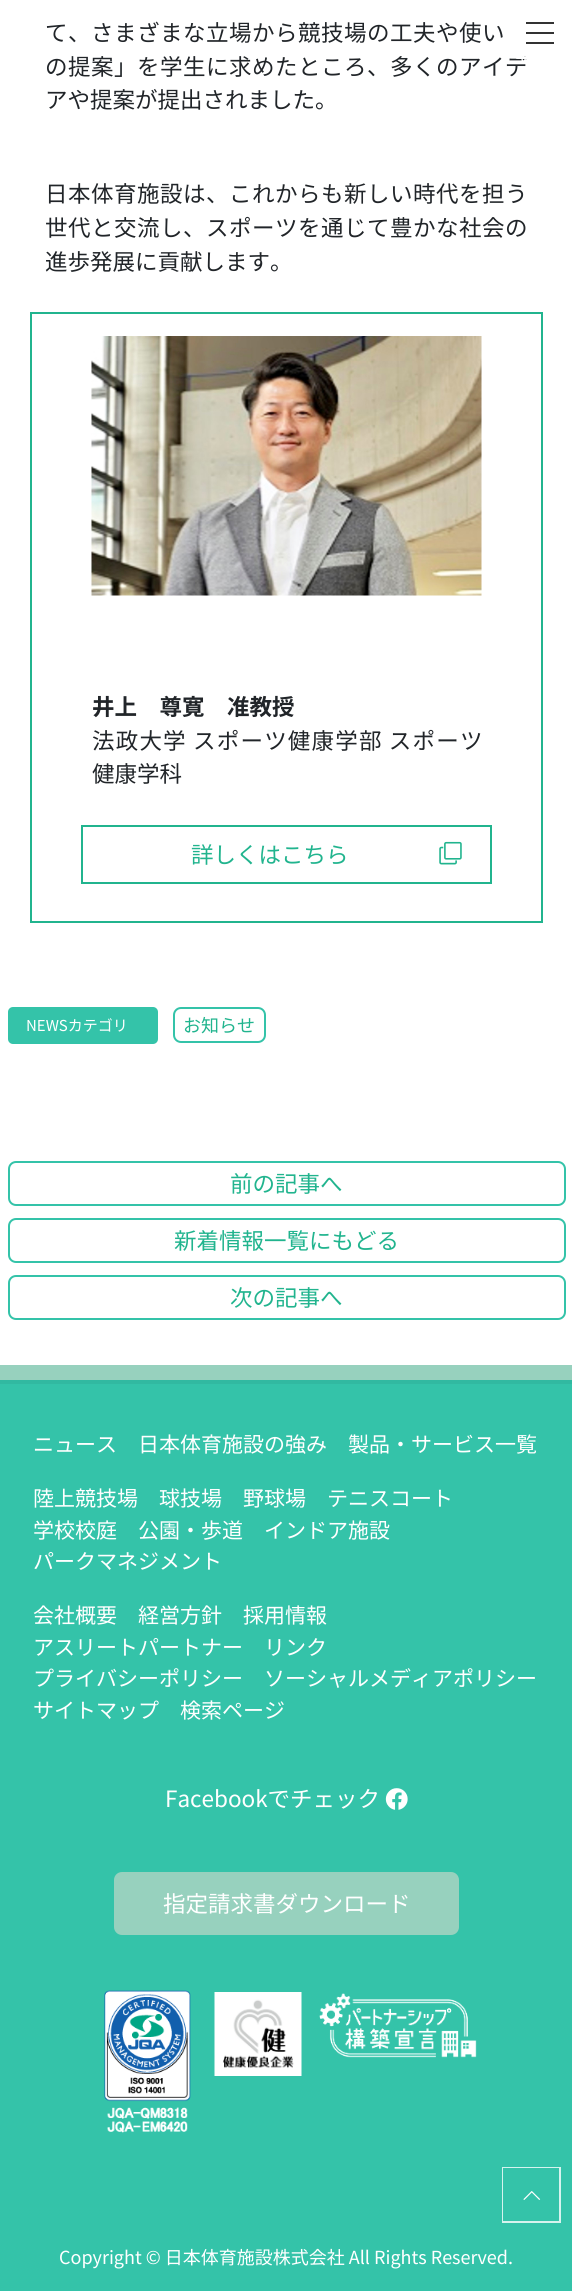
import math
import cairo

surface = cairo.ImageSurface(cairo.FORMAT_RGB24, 572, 2291)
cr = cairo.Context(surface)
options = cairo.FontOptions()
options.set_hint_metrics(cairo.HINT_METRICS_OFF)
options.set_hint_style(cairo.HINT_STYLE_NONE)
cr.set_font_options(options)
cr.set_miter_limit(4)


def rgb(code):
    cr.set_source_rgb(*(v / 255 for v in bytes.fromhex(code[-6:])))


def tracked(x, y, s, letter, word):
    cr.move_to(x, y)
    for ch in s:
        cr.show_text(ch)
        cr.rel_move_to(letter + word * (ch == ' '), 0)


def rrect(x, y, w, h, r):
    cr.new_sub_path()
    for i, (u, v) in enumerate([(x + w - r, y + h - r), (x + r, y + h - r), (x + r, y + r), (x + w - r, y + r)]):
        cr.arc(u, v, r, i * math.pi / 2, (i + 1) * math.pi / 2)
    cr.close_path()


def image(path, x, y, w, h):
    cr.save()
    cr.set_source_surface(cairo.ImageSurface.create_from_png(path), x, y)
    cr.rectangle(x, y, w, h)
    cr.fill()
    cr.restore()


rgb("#ffffff")
cr.paint()
cr.rectangle(31, 313, 511, 609)
rgb("#21b48e")
cr.stroke()
image("img/1.png", 91, 336, 391, 260)
cr.rectangle(82, 826, 409, 57)
cr.stroke()
image("img/2.png", 439, 841, 23, 24)
rgb("#34c3a9")
rrect(8, 1007, 150, 37, 5)
cr.fill()
rrect(174, 1008, 91, 34, 7)
cr.stroke()
rrect(9, 1162, 556, 43, 7)
cr.stroke()
rrect(9, 1219, 556, 43, 7)
cr.stroke()
rrect(9, 1276, 556, 43, 7)
cr.stroke()
for x, y, w, h, color in [
    (0, 1384, 572, 907, "#34c3a9"),
    (0, 1365, 572, 15, "#97d1be"),
    (0, 1380, 572, 4, "#31b9a1"),
]:
    rgb(color)
    cr.rectangle(x, y, w, h)
    cr.fill()
image("img/3.png", 385, 1788, 23, 22)
rgb("#97d1be")
rrect(114, 1872, 345, 63, 8)
cr.fill()
image("img/4.png", 104, 1990, 87, 143)
image("img/5.png", 214, 1992, 88, 84)
image("img/6.png", 319, 1993, 158, 65)
image("img/7.png", 523, 2191, 18, 9)
cr.rectangle(502, 2167, 58, 55)
rgb("#d6f3ee")
cr.stroke()
cr.rectangle(501, 2166, 61, 58)
rgb("#34c3a9")
cr.stroke()
cr.select_font_face("Noto Sans JP")
cr.set_font_size(22.5)
rgb("#212529")
tracked(45, 41, "て、さまざまな立場から競技場の工夫や使い", 0.5, 0)
tracked(45, 75, "の提案」を学生に求めたところ、多くのアイデ", 0.5, 0)
cr.move_to(45, 108)
cr.show_text("アや提案が提出されました。")
tracked(45, 202, "日本体育施設は、これからも新しい時代を担う", 0.5, 0)
tracked(45, 236, "世代と交流し、スポーツを通じて豊かな社会の", 0.5, 0)
cr.move_to(45, 270)
cr.show_text("進歩発展に貢献します。")
cr.select_font_face("Noto Sans JP", cairo.FONT_SLANT_NORMAL, cairo.FONT_WEIGHT_BOLD)
cr.move_to(92, 715)
cr.show_text("井上　尊寛　准教授")
cr.select_font_face("Noto Sans JP")
tracked(92, 749, "法政大学 スポーツ健康学部 スポーツ", 1.2, 0)
cr.move_to(92, 782)
cr.show_text("健康学科")
rgb("#21b48e")
cr.move_to(191, 863)
cr.show_text("詳しくはこちら")
cr.set_font_size(15)
rgb("#ffffff")
cr.move_to(26, 1031)
cr.show_text("NEWSカテゴリ")
cr.set_font_size(18)
rgb("#21b48e")
cr.move_to(183, 1032)
cr.show_text("お知らせ")
cr.set_font_size(22.5)
for x, y, s in [
    (230, 1192, "前の記事へ"),
    (174, 1249, "新着情報一覧にもどる"),
    (230, 1306, "次の記事へ"),
]:
    cr.move_to(x, y)
    cr.show_text(s)
cr.set_source_rgba(1, 1, 1, 0.8)
rrect(515, 8, 51, 51, 3)
cr.fill()
for x, y, w, h, color in [
    (526, 22, 28, 2, "#333333"),
    (526, 32, 28, 2, "#333333"),
    (526, 42, 28, 2, "#333333"),
]:
    rgb(color)
    cr.rectangle(x, y, w, h)
    cr.fill()
rrect(516, 9, 49, 49, 2)
rgb("#ffffff")
cr.stroke()
cr.set_font_size(21)
for x, y, s in [
    (33, 1452, "ニュース"),
    (138, 1452, "日本体育施設の強み"),
    (348, 1452, "製品・サービス一覧"),
    (33, 1506, "陸上競技場"),
    (159, 1506, "球技場"),
    (243, 1506, "野球場"),
    (327, 1506, "テニスコート"),
    (33, 1538, "学校校庭"),
    (138, 1538, "公園・歩道"),
    (264, 1538, "インドア施設"),
    (33, 1569, "パークマネジメント"),
    (33, 1623, "会社概要"),
    (138, 1623, "経営方針"),
    (243, 1623, "採用情報"),
    (33, 1655, "アスリートパートナー"),
    (264, 1655, "リンク"),
    (33, 1686, "プライバシーポリシー"),
    (264, 1686, "ソーシャルメディアポリシー"),
    (33, 1718, "サイトマップ"),
    (180, 1718, "検索ページ"),
]:
    cr.move_to(x, y)
    cr.show_text(s)
cr.set_font_size(22.5)
cr.move_to(165, 1807)
cr.show_text("Facebookでチェック")
cr.move_to(163, 1912)
cr.show_text("指定請求書ダウンロード")
cr.set_font_size(18)
cr.move_to(59, 2264)
cr.show_text("Copyright © 日本体育施設株式会社 All Rights Reserved.")
surface.write_to_png("page.png")
